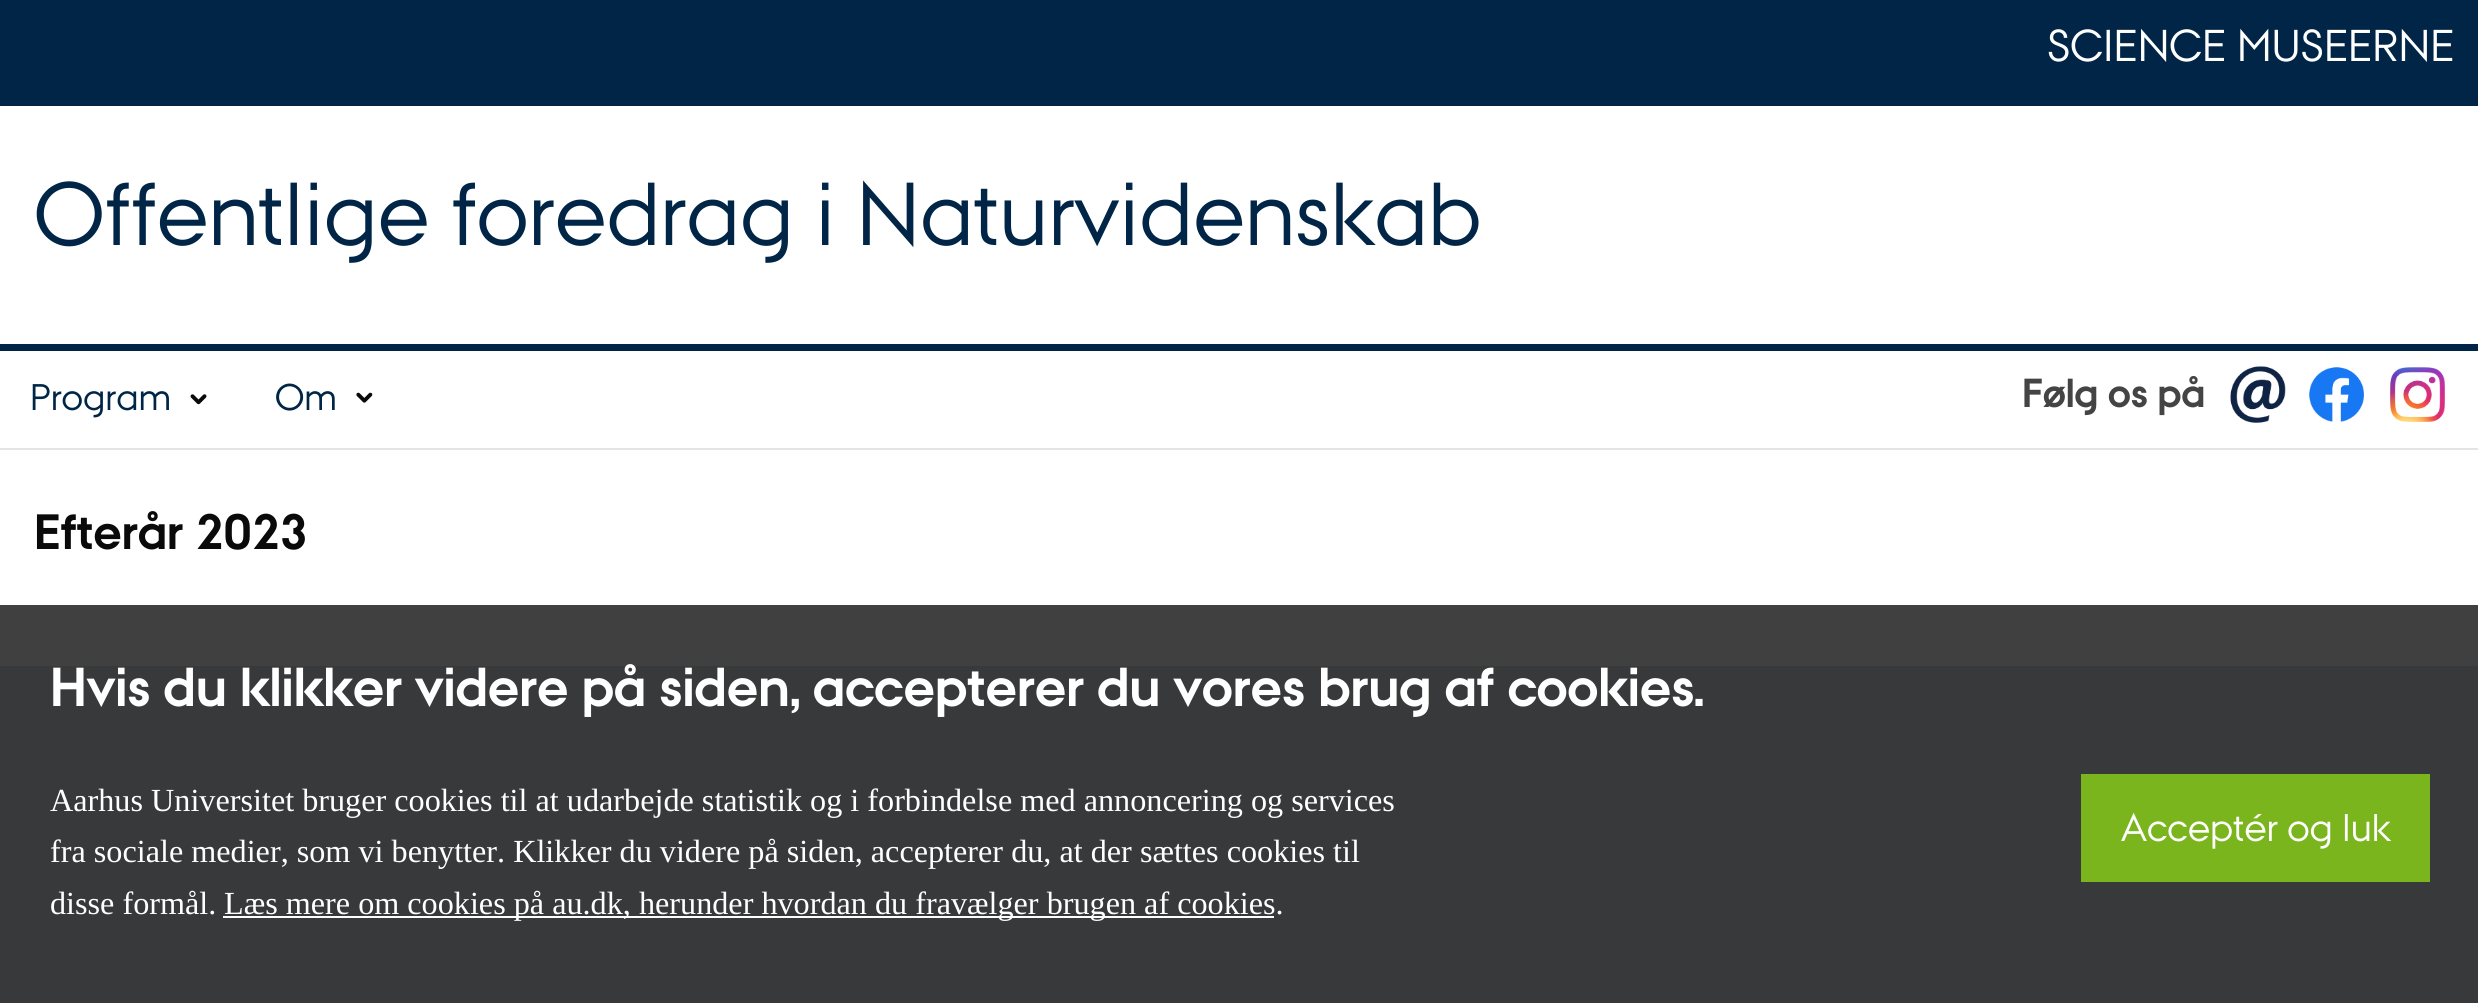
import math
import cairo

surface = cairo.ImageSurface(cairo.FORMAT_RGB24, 2478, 1003)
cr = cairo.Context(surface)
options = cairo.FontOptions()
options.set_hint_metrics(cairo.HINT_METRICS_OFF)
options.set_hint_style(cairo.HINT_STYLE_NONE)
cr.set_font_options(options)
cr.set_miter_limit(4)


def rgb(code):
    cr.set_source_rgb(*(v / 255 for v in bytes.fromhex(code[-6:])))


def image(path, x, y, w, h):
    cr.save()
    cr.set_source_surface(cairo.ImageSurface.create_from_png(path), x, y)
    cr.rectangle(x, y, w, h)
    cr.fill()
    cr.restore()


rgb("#ffffff")
cr.paint()
for x, y, w, h, color in [
    (0, 605, 2478, 61, "#404040"),
    (0, 0, 2478, 106, "#002546"),
    (0, 344, 2478, 7, "#002546"),
    (0, 448, 2478, 2, "#e4e4e4"),
]:
    rgb(color)
    cr.rectangle(x, y, w, h)
    cr.fill()
image("img/1.png", 190, 394, 17, 11)
image("img/2.png", 356, 392, 17, 11)
image("img/3.png", 2230, 366, 56, 57)
image("img/4.png", 2309, 367, 55, 55)
image("img/5.png", 2390, 367, 55, 55)
for x, y, w, h, color in [
    (0, 666, 2478, 337, "#38393a"),
    (223, 916, 1051, 2, "#ffffff"),
    (2081, 774, 349, 108, "#7ab51d"),
]:
    rgb(color)
    cr.rectangle(x, y, w, h)
    cr.fill()
cr.select_font_face("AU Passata")
cr.set_font_size(44.5)
rgb("#ffffff")
cr.move_to(2047, 61)
cr.show_text("SCIENCE MUSEERNE")
cr.set_font_size(89.1)
rgb("#002546")
cr.move_to(34, 245)
cr.show_text("Offentlige foredrag i Naturvidenskab")
cr.set_font_size(37)
cr.move_to(30, 410)
cr.show_text("Program")
cr.move_to(275, 410)
cr.show_text("Om")
cr.select_font_face("AU Passata", cairo.FONT_SLANT_NORMAL, cairo.FONT_WEIGHT_BOLD)
cr.set_font_size(40.5)
rgb("#444444")
cr.move_to(2022, 407)
cr.show_text("Følg os på")
cr.set_font_size(49.5)
rgb("#0a0a0a")
cr.move_to(34, 549)
cr.show_text("Efterår 2023")
cr.set_font_size(54.75)
rgb("#ffffff")
for x, y, s in [
    (50, 706, "Hvis du klikker videre på siden,"),
    (813, 706, "accepterer du vores brug af cookies"),
    (1693, 706, "."),
]:
    cr.move_to(x, y)
    cr.show_text(s)
cr.select_font_face("Liberation Serif")
cr.set_font_size(32.2)
for x, y, s in [
    (50, 811, "Aarhus Universitet bruger cookies til at udarbejde statistik og i forbindelse med annoncering og services"),
    (50, 862, "fra sociale medier, som vi benytter. Klikker du videre på siden, accepterer du, at der sættes cookies til"),
    (50, 914, "disse formål."),
    (224, 914, "Læs mere om cookies på au.dk, herunder hvordan du fravælger brugen af cookies."),
]:
    cr.move_to(x, y)
    cr.show_text(s)
cr.select_font_face("AU Passata")
cr.set_font_size(38.5)
cr.move_to(2121, 841)
cr.show_text("Acceptér og luk")
surface.write_to_png("page.png")
